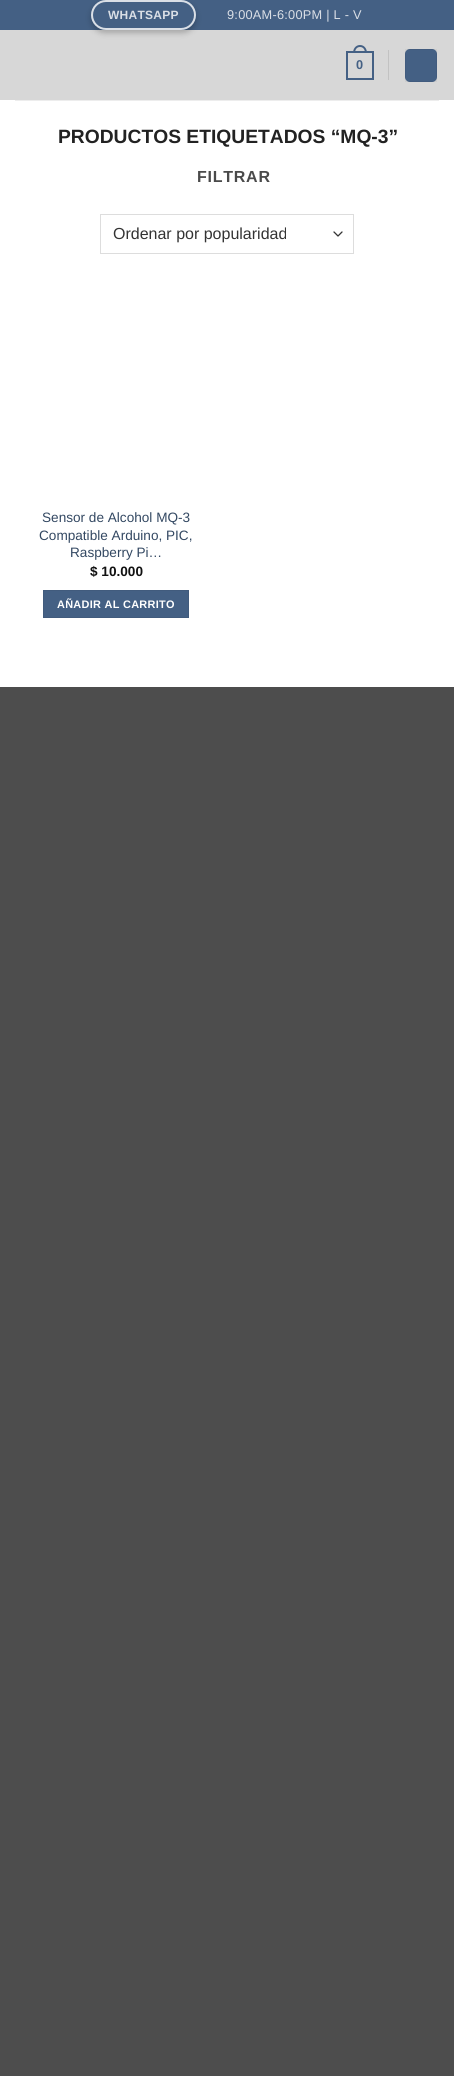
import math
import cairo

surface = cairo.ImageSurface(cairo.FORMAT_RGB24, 454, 2076)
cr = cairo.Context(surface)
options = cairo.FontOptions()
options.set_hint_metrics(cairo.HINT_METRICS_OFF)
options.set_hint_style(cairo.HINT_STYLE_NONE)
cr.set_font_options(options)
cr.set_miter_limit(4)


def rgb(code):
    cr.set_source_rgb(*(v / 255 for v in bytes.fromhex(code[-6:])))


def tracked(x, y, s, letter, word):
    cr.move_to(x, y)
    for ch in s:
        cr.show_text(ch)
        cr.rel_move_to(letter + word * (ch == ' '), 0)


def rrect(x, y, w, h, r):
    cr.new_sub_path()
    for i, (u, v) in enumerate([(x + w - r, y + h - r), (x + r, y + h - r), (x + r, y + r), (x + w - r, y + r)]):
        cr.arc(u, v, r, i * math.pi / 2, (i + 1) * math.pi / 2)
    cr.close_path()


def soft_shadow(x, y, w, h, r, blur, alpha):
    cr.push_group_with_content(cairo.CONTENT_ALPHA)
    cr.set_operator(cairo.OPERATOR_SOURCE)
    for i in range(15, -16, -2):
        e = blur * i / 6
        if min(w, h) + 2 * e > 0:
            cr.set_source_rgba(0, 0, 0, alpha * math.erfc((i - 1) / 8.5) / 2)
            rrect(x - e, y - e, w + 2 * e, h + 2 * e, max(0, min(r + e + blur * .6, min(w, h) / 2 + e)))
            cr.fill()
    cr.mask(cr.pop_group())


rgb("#4d4d4d")
cr.paint()
for x, y, w, h, color in [
    (0, 100, 454, 587, "#ffffff"),
    (0, 0, 454, 30, "#446084"),
    (0, 30, 454, 70, "#d7d7d7"),
]:
    rgb(color)
    cr.rectangle(x, y, w, h)
    cr.fill()
cr.save()
cr.set_fill_rule(cairo.FILL_RULE_EVEN_ODD)
cr.new_path()
cr.move_to(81, 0)
cr.line_to(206, 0)
cr.line_to(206, 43)
cr.line_to(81, 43)
cr.close_path()
cr.move_to(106, 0)
cr.line_to(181, 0)
cr.curve_to(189.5, 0, 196, 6.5, 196, 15)
cr.curve_to(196, 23.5, 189.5, 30, 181, 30)
cr.line_to(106, 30)
cr.curve_to(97.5, 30, 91, 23.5, 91, 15)
cr.curve_to(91, 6.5, 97.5, 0, 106, 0)
cr.close_path()
cr.clip()
rgb("#000000")
soft_shadow(91, 3, 105, 30, 15, 3, 0.23)
cr.restore()
rrect(92, 1, 103, 28, 14)
cr.set_source_rgba(1, 1, 1, 0.8)
cr.stroke()
cr.rectangle(347, 52, 26, 27)
rgb("#446084")
cr.stroke()
cr.set_fill_rule(cairo.FILL_RULE_EVEN_ODD)
cr.new_path()
cr.move_to(360, 45)
cr.curve_to(364.5, 45, 367, 49, 367, 53)
cr.line_to(353, 53)
cr.curve_to(353, 49, 355.5, 45, 360, 45)
cr.close_path()
cr.move_to(360, 47)
cr.curve_to(363.5, 47, 365, 50, 365, 53)
cr.line_to(355, 53)
cr.curve_to(355, 50, 356.5, 47, 360, 47)
cr.close_path()
cr.fill()
rgb("#c2c2c2")
cr.rectangle(388, 50, 1, 30)
cr.fill()
rgb("#446084")
rrect(405, 49, 32, 33, 5)
cr.fill()
cr.rectangle(405.5, 49.5, 31, 32)
cr.set_source_rgba(0, 0, 0, 0.05)
cr.set_line_width(1)
cr.stroke()
rgb("#ededed")
cr.rectangle(15, 100, 424, 1)
cr.fill()
cr.new_path()
cr.move_to(334, 232)
cr.line_to(338, 236)
cr.line_to(342, 232)
rgb("#333333")
cr.set_line_width(1.3)
cr.set_line_cap(cairo.LINE_CAP_ROUND)
cr.set_line_join(cairo.LINE_JOIN_ROUND)
cr.stroke()
cr.rectangle(100.5, 214.5, 253, 39)
rgb("#dddddd")
cr.set_line_width(1)
cr.set_line_cap(cairo.LINE_CAP_BUTT)
cr.set_line_join(cairo.LINE_JOIN_MITER)
cr.stroke()
rgb("#446084")
cr.rectangle(43.5, 590.5, 145, 27)
cr.fill_preserve()
rgb("#415b7d")
cr.stroke()
cr.select_font_face("Liberation Sans", cairo.FONT_SLANT_NORMAL, cairo.FONT_WEIGHT_BOLD)
cr.set_font_size(12)
rgb("#dadfe6")
tracked(108, 19, "WHATSAPP", 0.25, 0)
cr.select_font_face("Liberation Sans")
cr.set_font_size(12.75)
tracked(227, 19, "9:00AM-6:00PM | L - V", 0.25, 0)
cr.select_font_face("Liberation Sans", cairo.FONT_SLANT_NORMAL, cairo.FONT_WEIGHT_BOLD)
rgb("#446084")
cr.move_to(356, 69)
cr.show_text("0")
cr.set_font_size(19.25)
rgb("#222222")
cr.move_to(58, 143)
cr.show_text("PRODUCTOS ETIQUETADOS “MQ-3”")
cr.set_font_size(16)
rgb("#4a4a4a")
tracked(197, 182, "FILTRAR", 0.75, 0)
cr.select_font_face("Liberation Sans")
rgb("#333333")
cr.move_to(113, 239)
cr.show_text("Ordenar por popularidad")
cr.set_font_size(13.6)
rgb("#334862")
for x, y, s in [
    (42, 522, "Sensor de Alcohol MQ-3"),
    (39, 540, "Compatible Arduino, PIC,"),
    (70, 557, "Raspberry Pi…"),
]:
    cr.move_to(x, y)
    cr.show_text(s)
cr.select_font_face("Liberation Sans", cairo.FONT_SLANT_NORMAL, cairo.FONT_WEIGHT_BOLD)
rgb("#111111")
cr.move_to(90, 576)
cr.show_text("$ 10.000")
cr.set_font_size(10.9)
rgb("#ffffff")
tracked(57, 608, "AÑADIR AL CARRITO", 0.3, 0)
surface.write_to_png("page.png")
